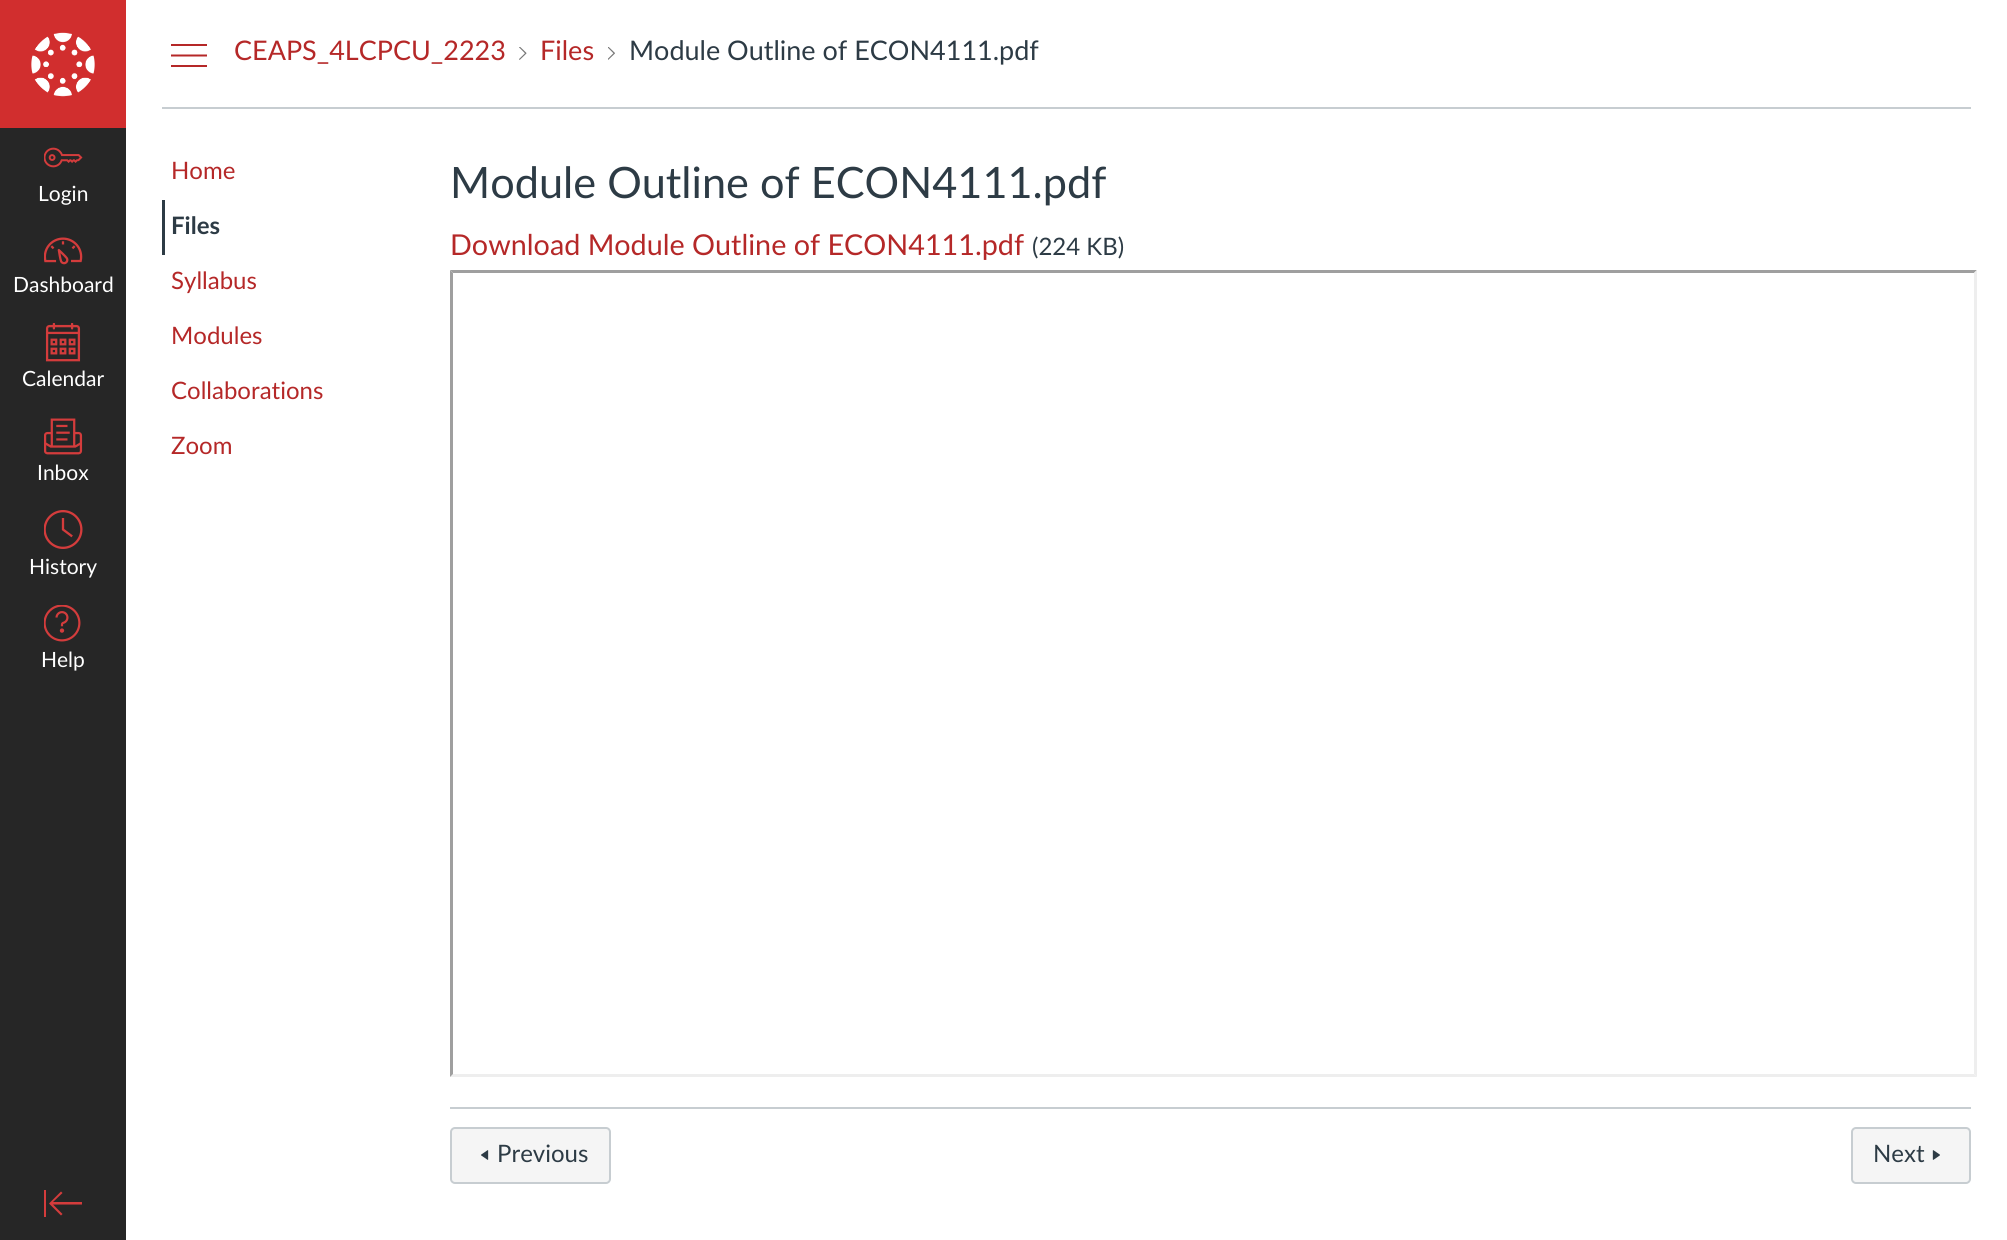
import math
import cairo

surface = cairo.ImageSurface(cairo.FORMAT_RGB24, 2007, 1240)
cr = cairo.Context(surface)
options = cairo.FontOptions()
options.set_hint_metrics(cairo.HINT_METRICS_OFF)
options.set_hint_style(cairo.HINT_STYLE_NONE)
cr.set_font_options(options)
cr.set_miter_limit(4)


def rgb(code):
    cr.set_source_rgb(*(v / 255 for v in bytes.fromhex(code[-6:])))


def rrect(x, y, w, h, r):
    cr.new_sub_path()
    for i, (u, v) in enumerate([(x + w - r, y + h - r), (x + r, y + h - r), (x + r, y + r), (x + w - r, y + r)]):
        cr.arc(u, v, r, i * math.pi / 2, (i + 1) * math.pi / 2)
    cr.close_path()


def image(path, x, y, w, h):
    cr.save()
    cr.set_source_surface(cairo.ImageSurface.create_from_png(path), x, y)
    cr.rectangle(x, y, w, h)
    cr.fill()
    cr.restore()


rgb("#ffffff")
cr.paint()
rgb("#262626")
cr.rectangle(0, 128, 126, 1112)
cr.fill()
rgb("#d12e2e")
cr.rectangle(0, 0, 126, 128)
cr.fill()
image("img/1.png", 31, 32, 64, 65)
image("img/2.png", 44, 147, 39, 21)
image("img/3.png", 44, 237, 39, 28)
image("img/4.png", 45, 323, 36, 39)
image("img/5.png", 44, 418, 39, 37)
image("img/6.png", 44, 510, 39, 39)
image("img/7.png", 44, 605, 37, 37)
rgb("#d43c3c")
cr.new_path()
cr.move_to(44, 1217)
cr.line_to(44, 1190)
cr.line_to(46, 1190)
cr.line_to(46, 1217)
cr.close_path()
cr.move_to(49, 1203.5)
cr.line_to(61, 1191.5)
cr.line_to(62.5, 1193)
cr.line_to(53, 1202)
cr.line_to(82, 1202)
cr.line_to(82, 1204.5)
cr.line_to(53, 1204.5)
cr.line_to(62.5, 1214)
cr.line_to(61, 1215.5)
cr.close_path()
cr.fill()
rgb("#c7cdd1")
cr.rectangle(162, 107, 1809, 2)
cr.fill()
rgb("#b52828")
cr.new_path()
cr.move_to(207, 65)
cr.line_to(207, 67)
cr.line_to(171, 67)
cr.line_to(171, 65)
cr.close_path()
cr.move_to(207, 54.5)
cr.line_to(207, 56.5)
cr.line_to(171, 56.5)
cr.line_to(171, 54.5)
cr.close_path()
cr.move_to(207, 44)
cr.line_to(207, 46)
cr.line_to(171, 46)
cr.line_to(171, 44)
cr.close_path()
cr.fill()
image("img/8.png", 519, 47, 8, 13)
image("img/9.png", 608, 47, 7, 13)
rgb("#2d3b45")
cr.rectangle(162, 200, 3, 55)
cr.fill()
rgb("#9f9f9f")
cr.new_path()
cr.move_to(450, 270)
cr.line_to(1977, 270)
cr.line_to(1974, 273)
cr.line_to(453, 273)
cr.close_path()
cr.fill()
rgb("#eeeeee")
cr.new_path()
cr.move_to(1977, 270)
cr.line_to(1977, 1077)
cr.line_to(1974, 1074)
cr.line_to(1974, 273)
cr.close_path()
cr.fill()
cr.new_path()
cr.move_to(1977, 1077)
cr.line_to(450, 1077)
cr.line_to(453, 1074)
cr.line_to(1974, 1074)
cr.close_path()
cr.fill()
rgb("#9f9f9f")
cr.new_path()
cr.move_to(450, 1077)
cr.line_to(450, 270)
cr.line_to(453, 273)
cr.line_to(453, 1074)
cr.close_path()
cr.fill()
rgb("#c7cdd1")
cr.rectangle(450, 1107, 1521, 2)
cr.fill()
rgb("#f5f5f5")
rrect(451, 1128, 159, 55, 4)
cr.fill_preserve()
rgb("#c7cdd1")
cr.stroke()
image("img/10.png", 481, 1150, 8, 10)
rgb("#f5f5f5")
rrect(1852, 1128, 118, 55, 4)
cr.fill_preserve()
rgb("#c7cdd1")
cr.stroke()
image("img/11.png", 1932, 1150, 8, 10)
cr.select_font_face("Lato")
cr.set_font_size(21)
rgb("#ffffff")
for x, y, s in [
    (38, 201, "Login"),
    (13, 292, "Dashboard"),
    (22, 386, "Calendar"),
    (37, 480, "Inbox"),
    (29, 574, "History"),
    (41, 667, "Help"),
]:
    cr.move_to(x, y)
    cr.show_text(s)
cr.set_font_size(27)
rgb("#b52828")
cr.move_to(234, 60)
cr.show_text("CEAPS_4LCPCU_2223")
cr.move_to(540, 60)
cr.show_text("Files")
rgb("#2d3b45")
cr.move_to(629, 60)
cr.show_text("Module Outline of ECON4111.pdf")
cr.set_font_size(24)
rgb("#b52828")
cr.move_to(171, 179)
cr.show_text("Home")
cr.select_font_face("Lato", cairo.FONT_SLANT_NORMAL, cairo.FONT_WEIGHT_BOLD)
rgb("#2d3b45")
cr.move_to(171, 234)
cr.show_text("Files")
cr.select_font_face("Lato")
rgb("#b52828")
for x, y, s in [
    (171, 289, "Syllabus"),
    (171, 344, "Modules"),
    (171, 399, "Collaborations"),
    (171, 454, "Zoom"),
]:
    cr.move_to(x, y)
    cr.show_text(s)
cr.set_font_size(43.25)
rgb("#2d3b45")
cr.move_to(450, 198)
cr.show_text("Module Outline of ECON4111.pdf")
cr.set_font_size(28.75)
rgb("#b52828")
cr.move_to(450, 255)
cr.show_text("Download Module Outline of ECON4111.pdf")
cr.set_font_size(24)
rgb("#2d3b45")
for x, y, s in [
    (1032, 255, "(224 KB)"),
    (497, 1162, "Previous"),
    (1873, 1162, "Next"),
]:
    cr.move_to(x, y)
    cr.show_text(s)
surface.write_to_png("page.png")
